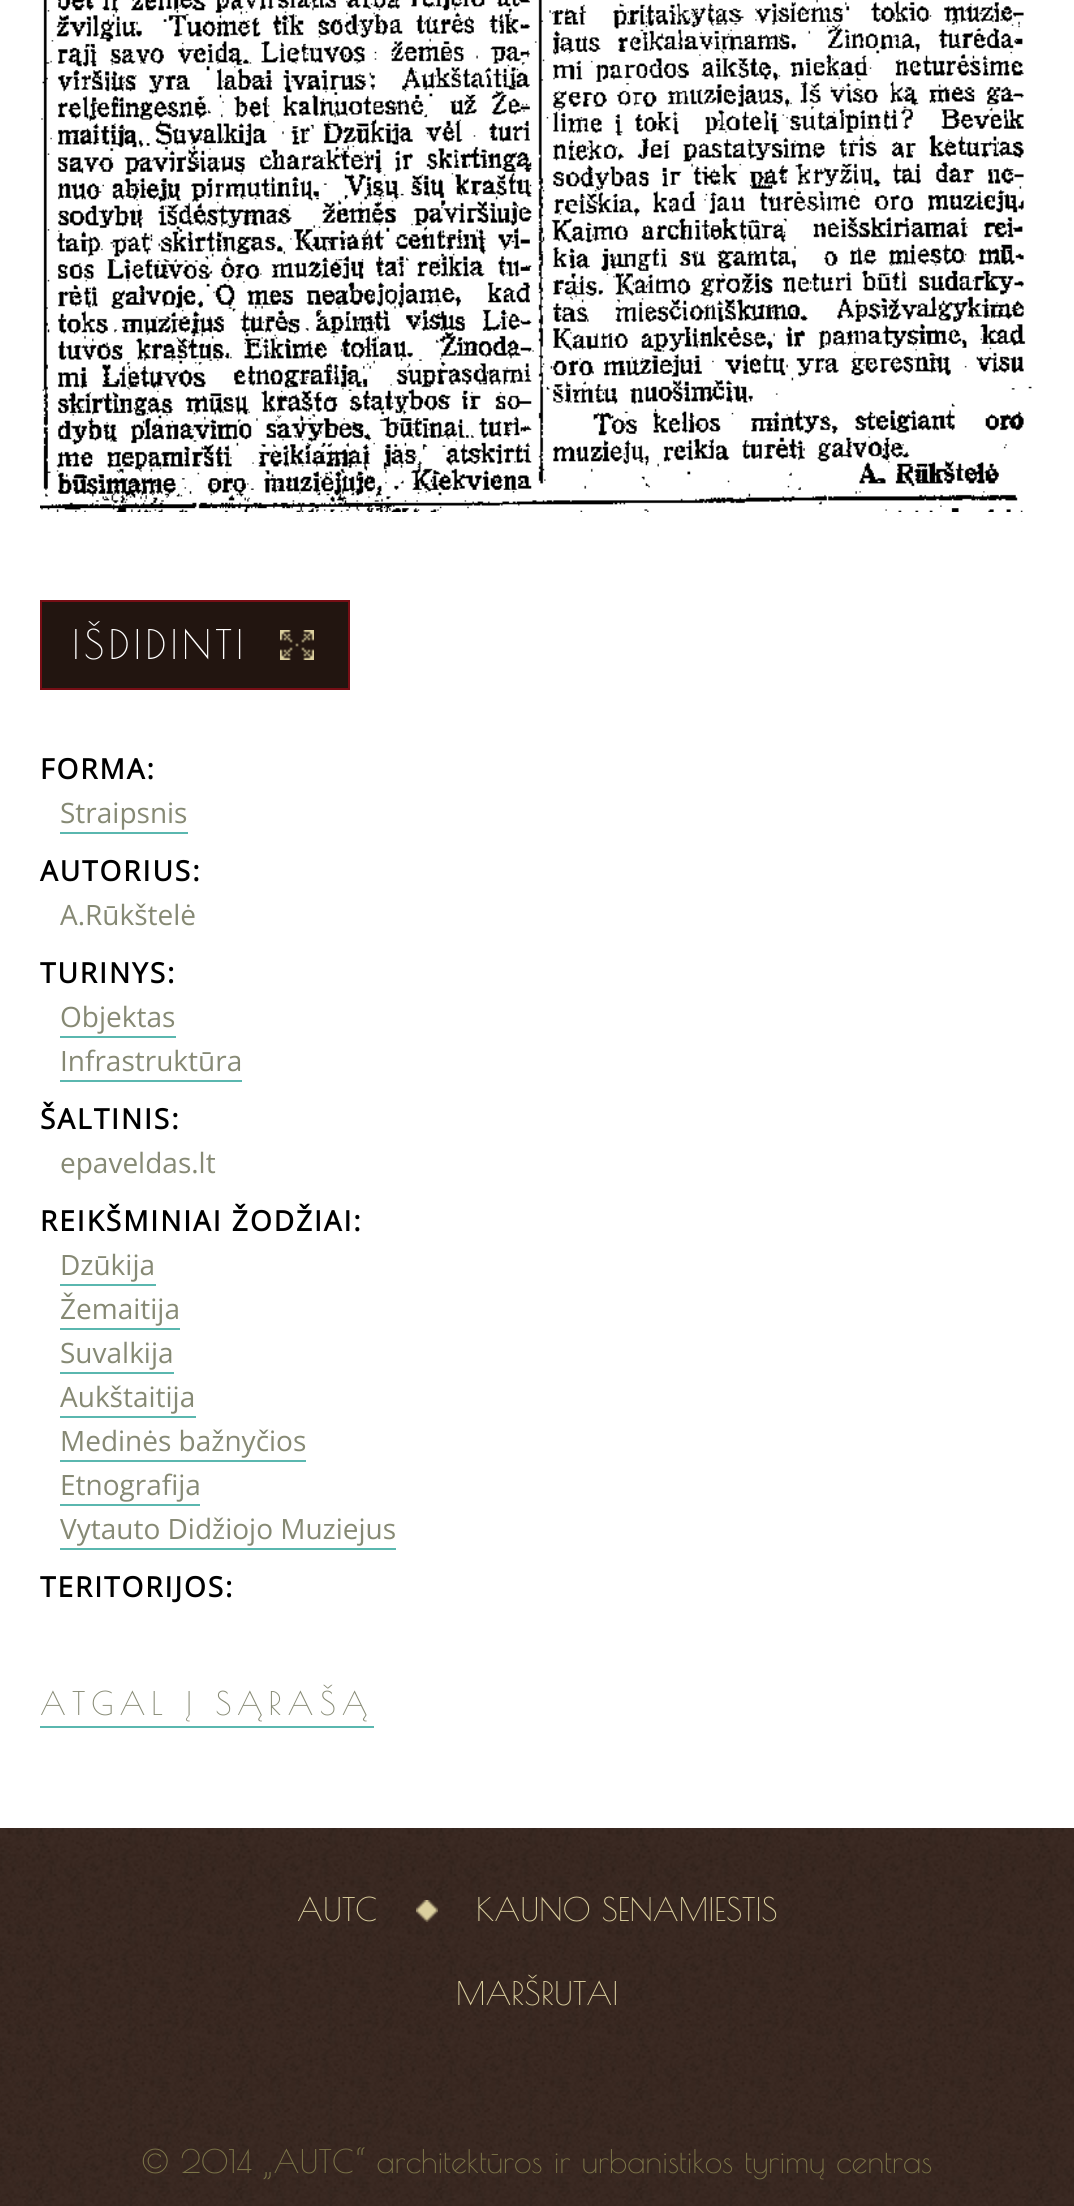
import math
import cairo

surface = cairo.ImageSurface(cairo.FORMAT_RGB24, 1074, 2206)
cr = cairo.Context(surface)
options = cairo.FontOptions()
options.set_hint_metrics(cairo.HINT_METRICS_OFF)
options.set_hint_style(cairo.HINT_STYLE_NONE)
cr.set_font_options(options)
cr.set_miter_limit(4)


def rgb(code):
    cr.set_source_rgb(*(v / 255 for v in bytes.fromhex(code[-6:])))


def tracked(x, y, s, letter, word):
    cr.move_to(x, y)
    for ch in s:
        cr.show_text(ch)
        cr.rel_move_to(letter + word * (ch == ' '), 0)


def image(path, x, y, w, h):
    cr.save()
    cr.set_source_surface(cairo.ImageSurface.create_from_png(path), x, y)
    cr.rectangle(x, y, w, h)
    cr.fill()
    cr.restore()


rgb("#ffffff")
cr.paint()
image("img/1.png", 40, 0, 992, 512)
rgb("#221510")
cr.rectangle(41, 601, 308, 88)
cr.fill_preserve()
rgb("#770e15")
cr.stroke()
image("img/2.png", 280, 630, 34, 30)
for x, y, w, h, color in [
    (60, 832, 128, 2, "#5ab7af"),
    (60, 1036, 116, 2, "#5ab7af"),
    (60, 1080, 182, 2, "#5ab7af"),
    (60, 1284, 96, 2, "#5ab7af"),
    (60, 1328, 120, 2, "#5ab7af"),
    (60, 1372, 114, 2, "#5ab7af"),
    (60, 1416, 136, 2, "#5ab7af"),
    (60, 1460, 246, 2, "#5ab7af"),
    (60, 1504, 140, 2, "#5ab7af"),
    (60, 1548, 336, 2, "#5ab7af"),
    (40, 1726, 334, 2, "#5ab7af"),
]:
    rgb(color)
    cr.rectangle(x, y, w, h)
    cr.fill()
image("img/3.png", 0, 1828, 1074, 378)
image("img/4.png", 416, 1900, 22, 22)
cr.select_font_face("Poiret One")
cr.set_font_size(40)
rgb("#ffffff")
tracked(72, 659, "IŠDIDINTI", 4, 0)
cr.select_font_face("Open Sans", cairo.FONT_SLANT_NORMAL, cairo.FONT_WEIGHT_BOLD)
cr.set_font_size(28)
rgb("#000000")
tracked(40, 779, "FORMA:", 2, 0)
cr.select_font_face("Open Sans")
rgb("#868974")
cr.move_to(60, 823)
cr.show_text("Straipsnis")
cr.select_font_face("Open Sans", cairo.FONT_SLANT_NORMAL, cairo.FONT_WEIGHT_BOLD)
rgb("#000000")
tracked(40, 881, "AUTORIUS:", 2, 0)
cr.select_font_face("Open Sans")
rgb("#868974")
cr.move_to(60, 925)
cr.show_text("A.Rūkštelė")
cr.select_font_face("Open Sans", cairo.FONT_SLANT_NORMAL, cairo.FONT_WEIGHT_BOLD)
rgb("#000000")
tracked(40, 983, "TURINYS:", 2, 0)
cr.select_font_face("Open Sans")
rgb("#868974")
cr.move_to(60, 1027)
cr.show_text("Objektas")
cr.move_to(60, 1071)
cr.show_text("Infrastruktūra")
cr.select_font_face("Open Sans", cairo.FONT_SLANT_NORMAL, cairo.FONT_WEIGHT_BOLD)
rgb("#000000")
tracked(40, 1129, "ŠALTINIS:", 2, 0)
cr.select_font_face("Open Sans")
rgb("#868974")
cr.move_to(60, 1173)
cr.show_text("epaveldas.lt")
cr.select_font_face("Open Sans", cairo.FONT_SLANT_NORMAL, cairo.FONT_WEIGHT_BOLD)
rgb("#000000")
tracked(40, 1231, "REIKŠMINIAI ŽODŽIAI:", 2, 0)
cr.select_font_face("Open Sans")
rgb("#868974")
for x, y, s in [
    (60, 1275, "Dzūkija"),
    (60, 1319, "Žemaitija"),
    (60, 1363, "Suvalkija"),
    (60, 1407, "Aukštaitija"),
    (60, 1451, "Medinės bažnyčios"),
    (60, 1495, "Etnografija"),
    (60, 1539, "Vytauto Didžiojo Muziejus"),
]:
    cr.move_to(x, y)
    cr.show_text(s)
cr.select_font_face("Open Sans", cairo.FONT_SLANT_NORMAL, cairo.FONT_WEIGHT_BOLD)
rgb("#000000")
tracked(40, 1597, "TERITORIJOS:", 2, 0)
cr.select_font_face("Poiret One")
cr.set_font_size(32)
rgb("#868974")
tracked(40, 1715, "ATGAL Į SĄRAŠĄ", 6, 0)
rgb("#dcd09f")
for x, y, s in [
    (297, 1921, "AUTC"),
    (476, 1921, "KAUNO SENAMIESTIS"),
    (456, 2005, "MARŠRUTAI"),
]:
    cr.move_to(x, y)
    cr.show_text(s)
rgb("#7b7448")
cr.move_to(141, 2173)
cr.show_text("© 2014 „AUTC“ architektūros ir urbanistikos tyrimų centras")
surface.write_to_png("page.png")
